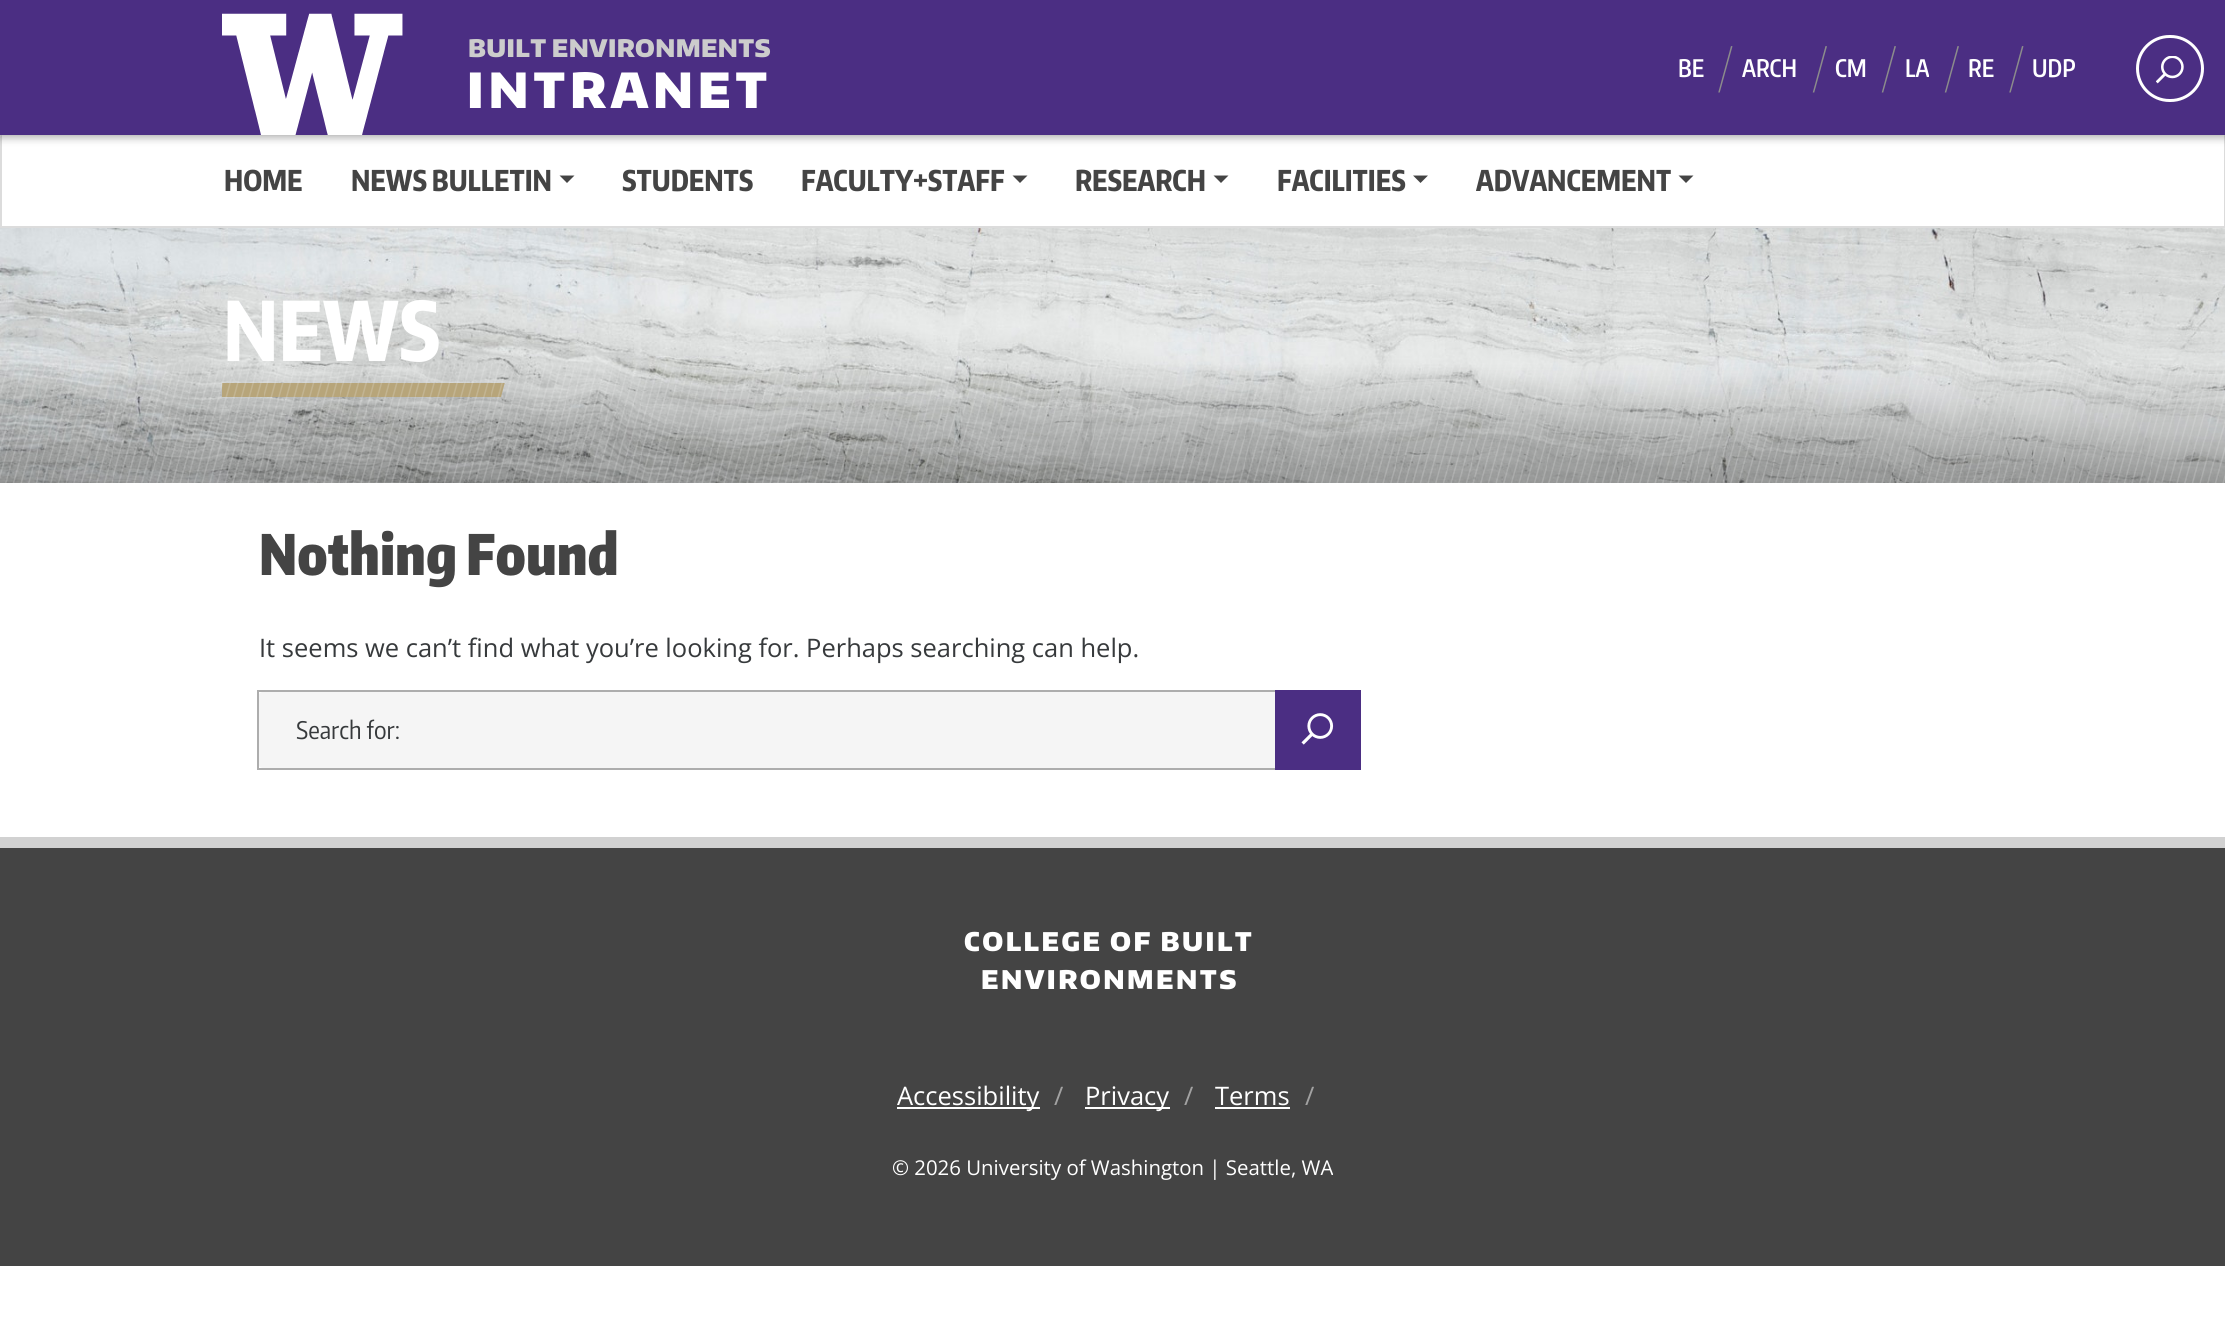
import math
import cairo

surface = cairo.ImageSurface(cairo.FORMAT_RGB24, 2225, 1335)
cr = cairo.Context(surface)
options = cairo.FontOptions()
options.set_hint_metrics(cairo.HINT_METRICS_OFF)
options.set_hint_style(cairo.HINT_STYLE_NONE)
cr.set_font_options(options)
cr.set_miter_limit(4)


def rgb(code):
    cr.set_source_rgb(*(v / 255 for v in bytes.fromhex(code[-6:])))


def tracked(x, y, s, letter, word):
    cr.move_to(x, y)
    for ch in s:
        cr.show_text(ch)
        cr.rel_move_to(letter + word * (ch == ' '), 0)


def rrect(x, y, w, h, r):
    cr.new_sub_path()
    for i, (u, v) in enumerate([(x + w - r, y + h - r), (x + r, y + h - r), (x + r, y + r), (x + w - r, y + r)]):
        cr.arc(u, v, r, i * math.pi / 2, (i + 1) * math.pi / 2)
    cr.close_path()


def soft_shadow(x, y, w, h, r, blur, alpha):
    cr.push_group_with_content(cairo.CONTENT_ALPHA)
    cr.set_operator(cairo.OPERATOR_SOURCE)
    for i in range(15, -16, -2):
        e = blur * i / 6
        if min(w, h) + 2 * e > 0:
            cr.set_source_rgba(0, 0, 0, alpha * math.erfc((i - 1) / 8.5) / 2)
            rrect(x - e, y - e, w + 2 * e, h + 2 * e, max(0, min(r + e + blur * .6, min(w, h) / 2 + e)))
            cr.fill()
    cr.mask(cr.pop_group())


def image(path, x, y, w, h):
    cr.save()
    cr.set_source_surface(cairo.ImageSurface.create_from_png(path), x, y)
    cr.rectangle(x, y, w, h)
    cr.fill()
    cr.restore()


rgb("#ffffff")
cr.paint()
rgb("#dbdbdb")
cr.new_path()
cr.move_to(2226, 135)
cr.line_to(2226, 228)
cr.line_to(2224, 226)
cr.line_to(2224, 135)
cr.close_path()
cr.fill()
cr.set_source_rgba(0, 0, 0, 0.14)
cr.new_path()
cr.move_to(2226, 228)
cr.line_to(0, 228)
cr.line_to(2, 226)
cr.line_to(2224, 226)
cr.close_path()
cr.fill()
cr.new_path()
cr.move_to(0, 228)
cr.line_to(0, 135)
cr.line_to(2, 135)
cr.line_to(2, 226)
cr.close_path()
cr.fill()
rgb("#000000")
soft_shadow(0, 3, 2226, 135, 0, 4, 0.3)
rgb("#4b2e83")
cr.rectangle(0, 0, 2225, 135)
cr.fill()
image("img/1.png", 222, 13, 181, 122)
image("img/2.png", 1718, 46, 15, 47)
image("img/3.png", 1812, 46, 15, 47)
image("img/3.png", 1881, 46, 15, 47)
image("img/3.png", 1944, 46, 15, 47)
image("img/2.png", 2009, 46, 15, 47)
rrect(2137.5, 36.5, 65, 64, 32)
rgb("#ffffff")
cr.set_line_width(3)
cr.stroke()
image("img/4.png", 2156, 56, 28, 28)
rgb("#444444")
cr.new_path()
cr.move_to(559.5, 175.5)
cr.line_to(574.5, 175.5)
cr.line_to(567, 183)
cr.close_path()
cr.fill()
cr.new_path()
cr.move_to(1012.5, 175.5)
cr.line_to(1027.5, 175.5)
cr.line_to(1020, 183)
cr.close_path()
cr.fill()
cr.new_path()
cr.move_to(1213.5, 175.5)
cr.line_to(1228.5, 175.5)
cr.line_to(1221, 183)
cr.close_path()
cr.fill()
cr.new_path()
cr.move_to(1413, 175.5)
cr.line_to(1428, 175.5)
cr.line_to(1420.5, 183)
cr.close_path()
cr.fill()
cr.new_path()
cr.move_to(1678.5, 175.5)
cr.line_to(1693.5, 175.5)
cr.line_to(1686, 183)
cr.close_path()
cr.fill()
image("img/5.png", 0, 228, 2225, 255)
cr.save()
cr.rectangle(222, 383, 1782, 15)
cr.clip()
rgb("#b7a57a")
cr.new_path()
cr.move_to(217, 382)
cr.line_to(505, 382)
cr.line_to(501, 397)
cr.line_to(213, 397)
cr.close_path()
cr.fill()
cr.restore()
image("img/6.png", 0, 363, 2225, 120)
rgb("#f5f5f5")
rrect(258, 692, 1101, 76, 5)
cr.fill()
cr.rectangle(258, 691, 1102, 78)
rgb("#adadad")
cr.set_line_width(2)
cr.stroke()
rgb("#4b2e83")
cr.rectangle(1277, 692, 82, 76)
cr.fill()
image("img/7.png", 1301, 713, 33, 32)
cr.rectangle(1276, 691, 84, 78)
cr.stroke()
for x, y, w, h, color in [
    (0, 848, 2225, 418, "#444444"),
    (0, 837, 2225, 11, "#d1d1d1"),
    (897, 1107, 143, 2, "#ffffff"),
    (1085, 1107, 85, 2, "#ffffff"),
    (1215, 1107, 75, 2, "#ffffff"),
]:
    rgb(color)
    cr.rectangle(x, y, w, h)
    cr.fill()
cr.select_font_face("Encode Sans Black")
cr.set_font_size(24)
rgb("#cccccc")
tracked(468, 57, "BUILT ENVIRONMENTS", 0.4, 0)
cr.set_font_size(48)
rgb("#ffffff")
tracked(467, 108, "INTRANET", 4.75, 0)
cr.select_font_face("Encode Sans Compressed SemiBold")
cr.set_font_size(24)
for x, y, s in [
    (1678, 77, "BE"),
    (1742, 77, "ARCH"),
    (1835, 77, "CM"),
    (1905, 77, "LA"),
    (1968, 77, "RE"),
    (2032, 77, "UDP"),
]:
    cr.move_to(x, y)
    cr.show_text(s)
cr.select_font_face("Encode Sans Compressed ExtraBold")
cr.set_font_size(28.5)
rgb("#444444")
for x, y, s in [
    (224, 191, "HOME"),
    (351, 191, "NEWS BULLETIN"),
    (622, 191, "STUDENTS"),
    (801, 191, "FACULTY+STAFF"),
    (1075, 191, "RESEARCH"),
    (1277, 191, "FACILITIES"),
    (1476, 191, "ADVANCEMENT"),
]:
    cr.move_to(x, y)
    cr.show_text(s)
cr.set_font_size(81.5)
rgb("#ffffff")
cr.move_to(223, 361)
cr.show_text("NEWS")
cr.select_font_face("Encode Sans Compressed Black")
cr.set_font_size(55.5)
rgb("#444444")
cr.move_to(259, 575)
cr.show_text("Nothing Found")
cr.select_font_face("Open Sans")
cr.set_font_size(25.5)
rgb("#373a3c")
cr.move_to(259, 657)
cr.show_text("It seems we can’t find what you’re looking for. Perhaps searching can help.")
cr.select_font_face("Encode Sans Condensed")
cr.set_font_size(24)
cr.move_to(296, 739)
cr.show_text("Search for:")
cr.select_font_face("Encode Sans Black")
cr.set_font_size(25.5)
rgb("#ffffff")
tracked(964, 951, "COLLEGE OF BUILT", 2.5, 0)
tracked(981, 989, "ENVIRONMENTS", 2.5, 0)
cr.select_font_face("Open Sans")
cr.move_to(897, 1105)
cr.show_text("Accessibility")
rgb("#a2a2a2")
cr.move_to(1054, 1105)
cr.show_text("/")
rgb("#ffffff")
cr.move_to(1085, 1105)
cr.show_text("Privacy")
rgb("#a2a2a2")
cr.move_to(1184, 1105)
cr.show_text("/")
rgb("#ffffff")
cr.move_to(1215, 1105)
cr.show_text("Terms")
rgb("#a2a2a2")
cr.move_to(1305, 1105)
cr.show_text("/")
cr.set_font_size(20.4)
rgb("#ffffff")
cr.move_to(892, 1175)
cr.show_text("© 2026 University of Washington | Seattle, WA")
surface.write_to_png("page.png")
